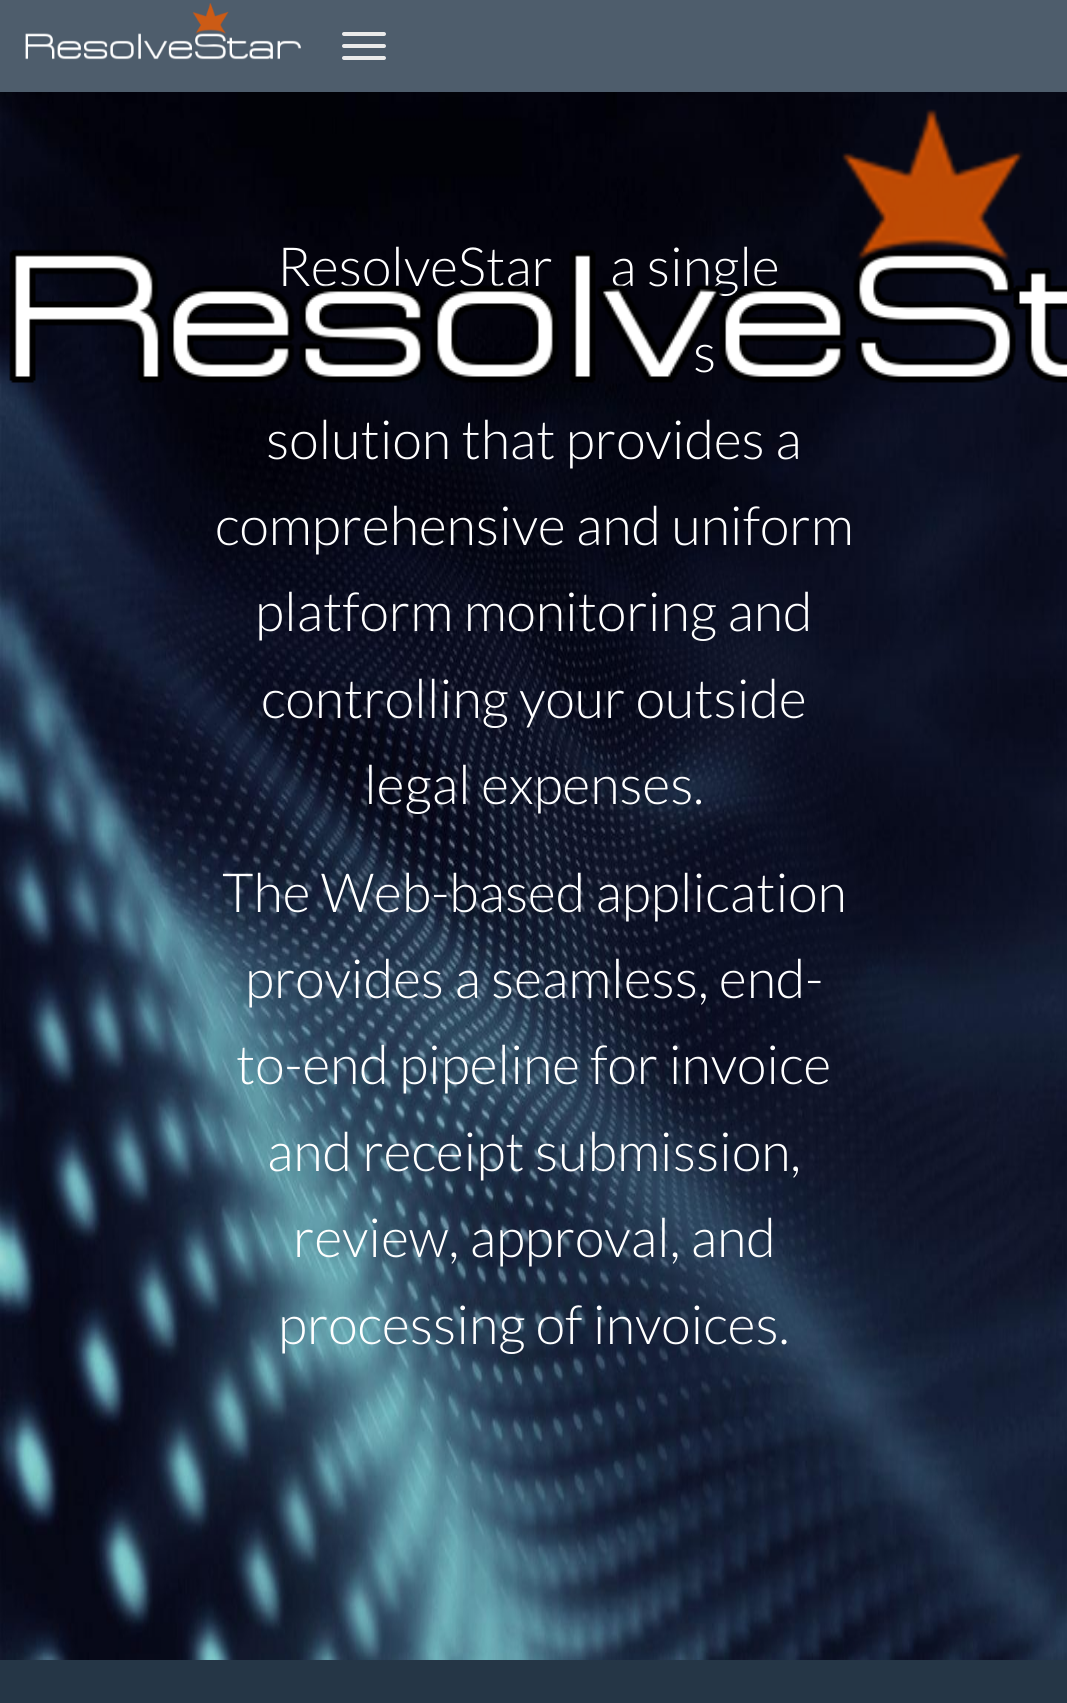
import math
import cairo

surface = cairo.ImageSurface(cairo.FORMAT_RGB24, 1067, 1703)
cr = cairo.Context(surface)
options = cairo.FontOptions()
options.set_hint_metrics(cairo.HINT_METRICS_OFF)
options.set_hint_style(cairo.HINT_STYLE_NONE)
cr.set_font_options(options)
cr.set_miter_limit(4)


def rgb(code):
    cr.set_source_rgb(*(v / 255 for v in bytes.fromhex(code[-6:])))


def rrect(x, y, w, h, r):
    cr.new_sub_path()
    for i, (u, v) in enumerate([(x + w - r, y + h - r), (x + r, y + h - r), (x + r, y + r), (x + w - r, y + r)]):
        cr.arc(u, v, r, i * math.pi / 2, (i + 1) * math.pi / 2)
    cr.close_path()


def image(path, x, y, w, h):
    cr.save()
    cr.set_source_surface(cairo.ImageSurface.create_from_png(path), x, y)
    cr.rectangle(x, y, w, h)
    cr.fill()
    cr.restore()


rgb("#253646")
cr.paint()
rgb("#4e5d6c")
cr.rectangle(0, 0, 1067, 92)
cr.fill()
image("img/1.png", 25, 3, 276, 57)
rgb("#ebebeb")
rrect(342, 32, 44, 4, 2)
cr.fill()
rrect(342, 44, 44, 4, 2)
cr.fill()
rrect(342, 56, 44, 4, 2)
cr.fill()
image("img/3.png", 0, 92, 1067, 1568)
cr.select_font_face("Lato Light")
cr.set_font_size(54)
rgb("#ffffff")
for x, y, s in [
    (277, 286, "ResolveStar"),
    (610, 286, "a single"),
    (693, 372, "s"),
]:
    cr.move_to(x, y)
    cr.show_text(s)
image("img/2.png", 9, 109, 1058, 274)
for x, y, s in [
    (266, 459, "solution that provides a"),
    (215, 545, "comprehensive and uniform"),
    (255, 631, "platform monitoring and"),
    (261, 718, "controlling your outside"),
    (364, 804, "legal expenses."),
    (222, 912, "The Web-based application"),
    (245, 998, "provides a seamless, end-"),
    (236, 1084, "to-end pipeline for invoice"),
    (267, 1171, "and receipt submission,"),
    (293, 1257, "review, approval, and"),
    (278, 1344, "processing of invoices."),
]:
    cr.move_to(x, y)
    cr.show_text(s)
surface.write_to_png("page.png")
